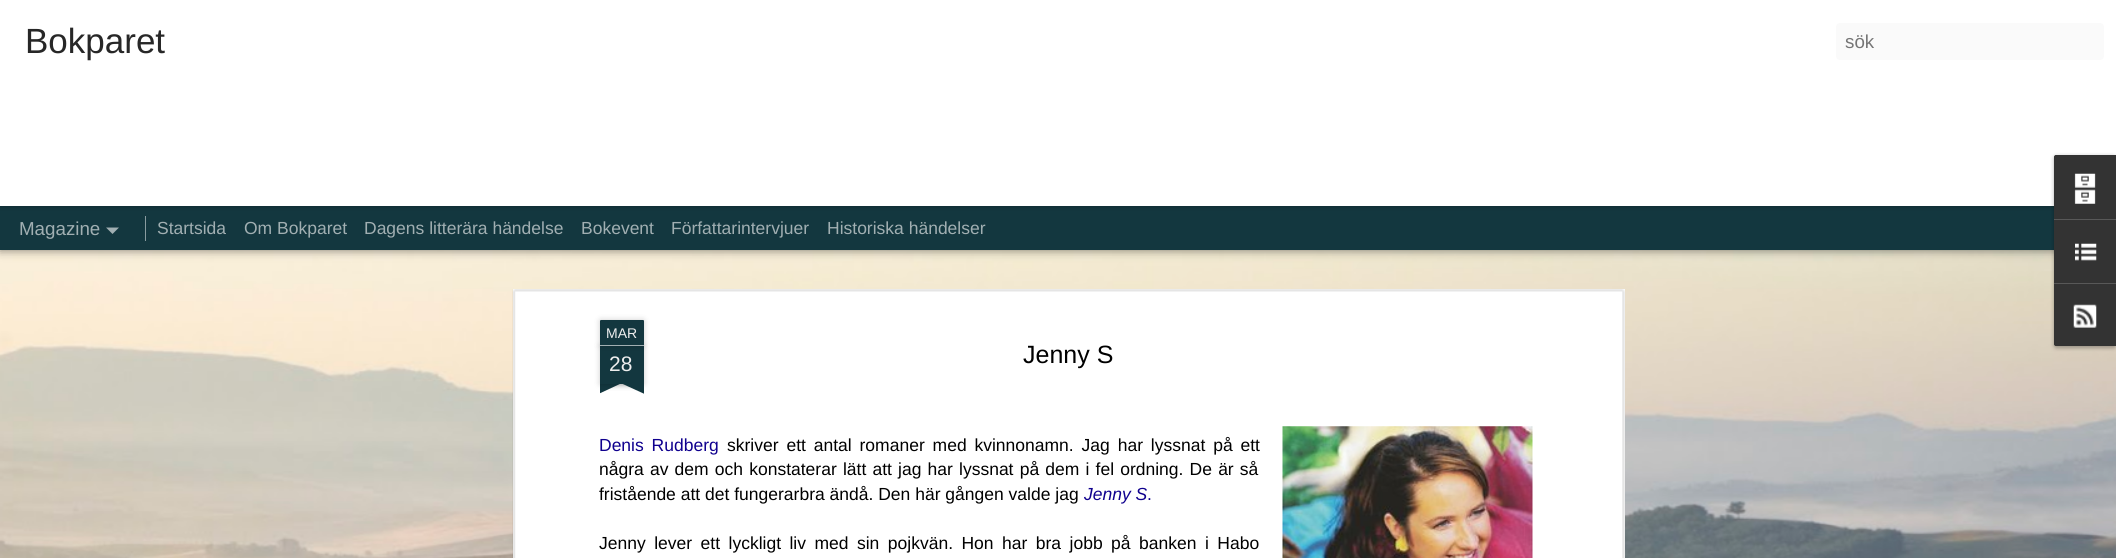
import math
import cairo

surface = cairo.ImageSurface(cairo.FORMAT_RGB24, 2116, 558)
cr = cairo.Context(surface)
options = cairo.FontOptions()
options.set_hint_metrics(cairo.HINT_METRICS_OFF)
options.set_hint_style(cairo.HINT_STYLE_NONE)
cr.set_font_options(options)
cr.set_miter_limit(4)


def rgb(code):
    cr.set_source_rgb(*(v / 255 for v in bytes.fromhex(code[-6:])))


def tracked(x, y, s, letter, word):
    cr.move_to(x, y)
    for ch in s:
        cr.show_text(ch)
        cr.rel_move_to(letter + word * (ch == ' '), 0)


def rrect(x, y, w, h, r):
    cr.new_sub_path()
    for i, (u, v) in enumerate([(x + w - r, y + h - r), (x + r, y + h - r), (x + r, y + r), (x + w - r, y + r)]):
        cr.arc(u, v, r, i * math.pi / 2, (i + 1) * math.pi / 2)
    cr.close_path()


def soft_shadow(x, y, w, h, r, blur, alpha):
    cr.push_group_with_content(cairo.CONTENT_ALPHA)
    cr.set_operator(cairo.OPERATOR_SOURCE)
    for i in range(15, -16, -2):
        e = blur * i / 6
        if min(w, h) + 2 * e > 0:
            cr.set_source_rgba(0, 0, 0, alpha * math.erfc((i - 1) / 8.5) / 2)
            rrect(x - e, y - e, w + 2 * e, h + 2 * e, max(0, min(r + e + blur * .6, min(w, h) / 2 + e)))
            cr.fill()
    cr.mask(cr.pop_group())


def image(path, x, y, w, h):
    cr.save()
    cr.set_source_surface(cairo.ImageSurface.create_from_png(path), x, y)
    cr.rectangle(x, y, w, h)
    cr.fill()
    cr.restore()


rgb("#ffffff")
cr.paint()
image("img/4.png", 0, 250, 2116, 308)
rgb("#000000")
soft_shadow(0, 206, 2116, 44, 0, 5, 0.5)
rgb("#13373f")
cr.rectangle(0, 206, 2054, 44)
cr.fill()
rgb("#000000")
soft_shadow(0, 0, 2116, 206, 0, 3, 0.3)
rgb("#ffffff")
cr.rectangle(0, 0, 2116, 206)
cr.fill()
rgb("#fafafa")
rrect(1836, 23, 268, 37, 4)
cr.fill()
rgb("#a1afb2")
cr.new_path()
cr.move_to(106, 227.5)
cr.line_to(119, 227.5)
cr.line_to(112.5, 234)
cr.close_path()
cr.fill()
rgb("#899b9f")
cr.rectangle(145, 216, 1, 25)
cr.fill()
rgb("#000000")
soft_shadow(2054, 156, 62, 192, 2.5, 2, 0.3)
rgb("#333333")
cr.new_path()
cr.move_to(2056.5, 155)
cr.line_to(2116, 155)
cr.line_to(2116, 346)
cr.line_to(2056.5, 346)
cr.curve_to(2055, 346, 2054, 345, 2054, 343.5)
cr.line_to(2054, 157.5)
cr.curve_to(2054, 156, 2055, 155, 2056.5, 155)
cr.close_path()
cr.fill()
cr.new_path()
cr.move_to(2056.5, 155)
cr.line_to(2116, 155)
cr.line_to(2116, 219)
cr.line_to(2054, 219)
cr.line_to(2054, 157.5)
cr.curve_to(2054, 156, 2055, 155, 2056.5, 155)
cr.close_path()
cr.fill()
image("img/1.png", 2074, 173, 22, 31)
rgb("#585858")
cr.rectangle(2054, 219, 62, 1)
cr.fill()
image("img/2.png", 2075, 243, 22, 18)
rgb("#333333")
cr.new_path()
cr.move_to(2054, 283)
cr.line_to(2116, 283)
cr.line_to(2116, 346)
cr.line_to(2056.5, 346)
cr.curve_to(2055, 346, 2054, 345, 2054, 343.5)
cr.close_path()
cr.fill()
rgb("#585858")
cr.rectangle(2054, 283, 62, 1)
cr.fill()
image("img/3.png", 2073, 304, 24, 24)
rgb("#ffffff")
cr.rectangle(513, 289, 1112, 269)
cr.fill()
image("img/5.png", 512, 289, 1113, 269)
rgb("#000000")
soft_shadow(600, 346, 44, 38, 0, 3, 0.2)
rgb("#13373f")
cr.rectangle(600, 346, 44, 38)
cr.fill()
rgb("#000000")
soft_shadow(600, 320, 44, 26, 1, 3, 0.2)
rgb("#13373f")
cr.new_path()
cr.move_to(601, 320)
cr.line_to(643, 320)
cr.curve_to(643.5, 320, 644, 320.5, 644, 321)
cr.line_to(644, 346)
cr.line_to(600, 346)
cr.line_to(600, 321)
cr.curve_to(600, 320.5, 600.5, 320, 601, 320)
cr.close_path()
cr.fill()
rgb("#a1afb2")
cr.rectangle(600, 345, 44, 1)
cr.fill()
cr.save()
cr.rectangle(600, 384, 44, 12)
cr.clip()
rgb("#000000")
soft_shadow(589, 371, 62, 13, 0, 3, 0.2)
cr.restore()
cr.save()
cr.rectangle(600, 384, 44, 12)
cr.clip()
rgb("#13373f")
cr.new_path()
cr.move_to(588, 385)
cr.line_to(645, 359)
cr.line_to(650, 370)
cr.line_to(594, 396)
cr.close_path()
cr.fill()
cr.restore()
cr.save()
cr.rectangle(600, 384, 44, 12)
cr.clip()
rgb("#000000")
soft_shadow(593, 371, 62, 13, 0, 3, 0.2)
cr.restore()
cr.save()
cr.rectangle(600, 384, 44, 12)
cr.clip()
rgb("#13373f")
cr.new_path()
cr.move_to(597, 359)
cr.line_to(654, 385)
cr.line_to(649, 396)
cr.line_to(592, 370)
cr.close_path()
cr.fill()
cr.restore()
image("img/6.png", 1282, 426, 251, 132)
cr.select_font_face("Liberation Sans")
cr.set_font_size(35)
rgb("#272727")
cr.move_to(25, 53)
cr.show_text("Bokparet")
cr.set_font_size(18.75)
rgb("#757575")
cr.move_to(1845, 48)
cr.show_text("sök")
rgb("#a1afb2")
cr.move_to(19, 235)
cr.show_text("Magazine")
cr.set_font_size(17.5)
for x, y, s in [
    (157, 234, "Startsida"),
    (244, 234, "Om Bokparet"),
    (364, 234, "Dagens litterära händelse"),
    (581, 234, "Bokevent"),
    (671, 234, "Författarintervjuer"),
    (827, 234, "Historiska händelser"),
]:
    cr.move_to(x, y)
    cr.show_text(s)
cr.set_font_size(14)
rgb("#eeeeee")
cr.move_to(606, 338)
cr.show_text("MAR")
cr.set_font_size(21)
cr.move_to(609, 371)
cr.show_text("28")
cr.set_font_size(25)
rgb("#000000")
cr.move_to(1023, 363)
cr.show_text("Jenny S")
cr.set_font_size(17.5)
rgb("#0f008e")
tracked(599, 451, "Denis Rudberg", 0, 3)
rgb("#000000")
tracked(727, 451, "skriver ett antal romaner med kvinnonamn. Jag har lyssnat på ett", 0, 3)
tracked(599, 475, "några av dem och konstaterar lätt att jag har lyssnat på dem i fel ordning. De är så", 0, 1.3)
cr.move_to(599, 500)
cr.show_text("fristående att det fungerarbra ändå. Den här gången valde jag")
cr.select_font_face("Liberation Sans", cairo.FONT_SLANT_ITALIC)
rgb("#0f008e")
cr.move_to(1084, 500)
cr.show_text("Jenny S")
cr.select_font_face("Liberation Sans")
cr.move_to(1147, 500)
cr.show_text(".")
rgb("#000000")
tracked(599, 549, "Jenny lever ett lyckligt liv med sin pojkvän. Hon har bra jobb på banken i Habo", 0, 3.6)
surface.write_to_png("page.png")
